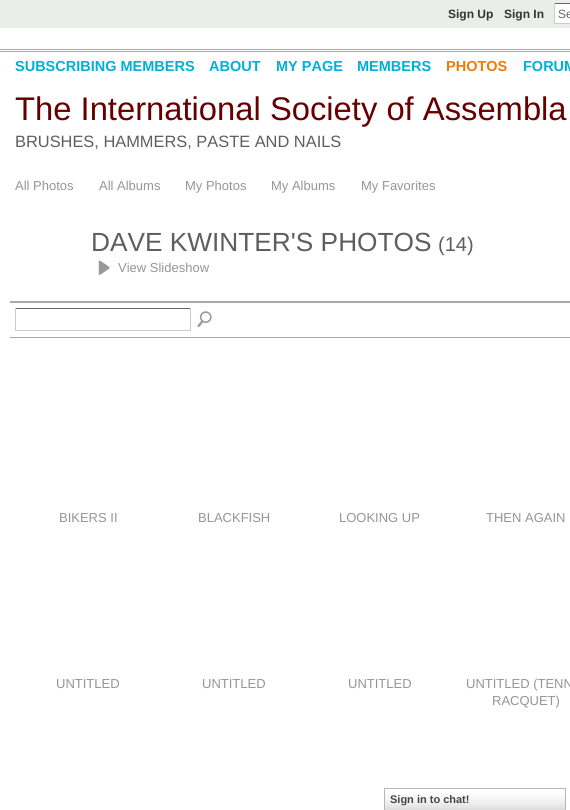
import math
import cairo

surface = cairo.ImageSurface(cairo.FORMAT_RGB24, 570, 810)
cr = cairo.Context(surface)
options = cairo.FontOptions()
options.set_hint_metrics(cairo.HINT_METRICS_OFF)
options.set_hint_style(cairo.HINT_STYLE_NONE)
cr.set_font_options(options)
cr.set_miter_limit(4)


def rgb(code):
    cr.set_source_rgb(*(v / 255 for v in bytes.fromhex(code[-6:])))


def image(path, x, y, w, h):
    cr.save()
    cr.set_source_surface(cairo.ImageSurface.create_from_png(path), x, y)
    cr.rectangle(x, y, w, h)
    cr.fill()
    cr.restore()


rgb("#ffffff")
cr.paint()
for x, y, w, h, color in [
    (0, 0, 570, 28, "#e9eee8"),
    (555, 4, 15, 19, "#ffffff"),
    (554, 3, 16, 1, "#666666"),
    (554, 23, 16, 1, "#cccccc"),
    (554, 3, 1, 21, "#cccccc"),
    (0, 49, 570, 1, "#aaaaaa"),
    (0, 51, 570, 1, "#aaaaaa"),
]:
    rgb(color)
    cr.rectangle(x, y, w, h)
    cr.fill()
image("img/1.png", 98, 260, 12, 15)
for x, y, w, h, color in [
    (10, 301, 560, 2, "#aaaaaa"),
    (10, 337, 560, 1, "#aaaaaa"),
    (15, 308, 176, 1, "#666666"),
    (190, 308, 1, 23, "#cccccc"),
    (15, 330, 176, 1, "#cccccc"),
    (15, 308, 1, 23, "#cccccc"),
]:
    rgb(color)
    cr.rectangle(x, y, w, h)
    cr.fill()
image("img/2.png", 197, 311, 15, 16)
image("img/3.png", 385, 794, 180, 16)
cr.rectangle(384.5, 788.5, 181, 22)
rgb("#b7b7b7")
cr.set_line_width(1)
cr.stroke()
cr.select_font_face("Liberation Sans", cairo.FONT_SLANT_NORMAL, cairo.FONT_WEIGHT_BOLD)
cr.set_font_size(12)
rgb("#333333")
cr.move_to(448, 18)
cr.show_text("Sign Up")
cr.move_to(504, 18)
cr.show_text("Sign In")
cr.select_font_face("Liberation Sans")
rgb("#666666")
cr.move_to(558, 18)
cr.show_text("Se")
cr.select_font_face("Liberation Sans", cairo.FONT_SLANT_NORMAL, cairo.FONT_WEIGHT_BOLD)
cr.set_font_size(14.5)
rgb("#00b0d8")
for x, y, s in [
    (15, 71, "SUBSCRIBING MEMBERS"),
    (209, 71, "ABOUT"),
    (276, 71, "MY PAGE"),
    (357, 71, "MEMBERS"),
]:
    cr.move_to(x, y)
    cr.show_text(s)
rgb("#ed7b09")
cr.move_to(446, 71)
cr.show_text("PHOTOS")
rgb("#00b0d8")
cr.move_to(523, 71)
cr.show_text("FORUM")
cr.select_font_face("Liberation Sans")
cr.set_font_size(32.75)
rgb("#660000")
cr.move_to(15, 120)
cr.show_text("The International Society of Assembla")
cr.set_font_size(16.4)
rgb("#5e5e5e")
cr.move_to(15, 147)
cr.show_text("BRUSHES, HAMMERS, PASTE AND NAILS")
cr.set_font_size(13)
rgb("#959595")
for x, y, s in [
    (15, 190, "All Photos"),
    (99, 190, "All Albums"),
    (185, 190, "My Photos"),
    (271, 190, "My Albums"),
    (361, 190, "My Favorites"),
]:
    cr.move_to(x, y)
    cr.show_text(s)
cr.set_font_size(26.25)
rgb("#5e5e5e")
cr.move_to(91, 251)
cr.show_text("DAVE KWINTER'S PHOTOS")
cr.set_font_size(20)
cr.move_to(438, 251)
cr.show_text("(14)")
cr.set_font_size(13)
rgb("#959595")
for x, y, s in [
    (118, 272, "View Slideshow"),
    (59, 522, "BIKERS II"),
    (198, 522, "BLACKFISH"),
    (339, 522, "LOOKING UP"),
    (486, 522, "THEN AGAIN"),
    (56, 688, "UNTITLED"),
    (202, 688, "UNTITLED"),
    (348, 688, "UNTITLED"),
    (466, 688, "UNTITLED (TENN"),
    (492, 705, "RACQUET)"),
]:
    cr.move_to(x, y)
    cr.show_text(s)
cr.select_font_face("Liberation Sans", cairo.FONT_SLANT_NORMAL, cairo.FONT_WEIGHT_BOLD)
cr.set_font_size(11)
rgb("#454545")
cr.move_to(390, 803)
cr.show_text("Sign in to chat!")
surface.write_to_png("page.png")
